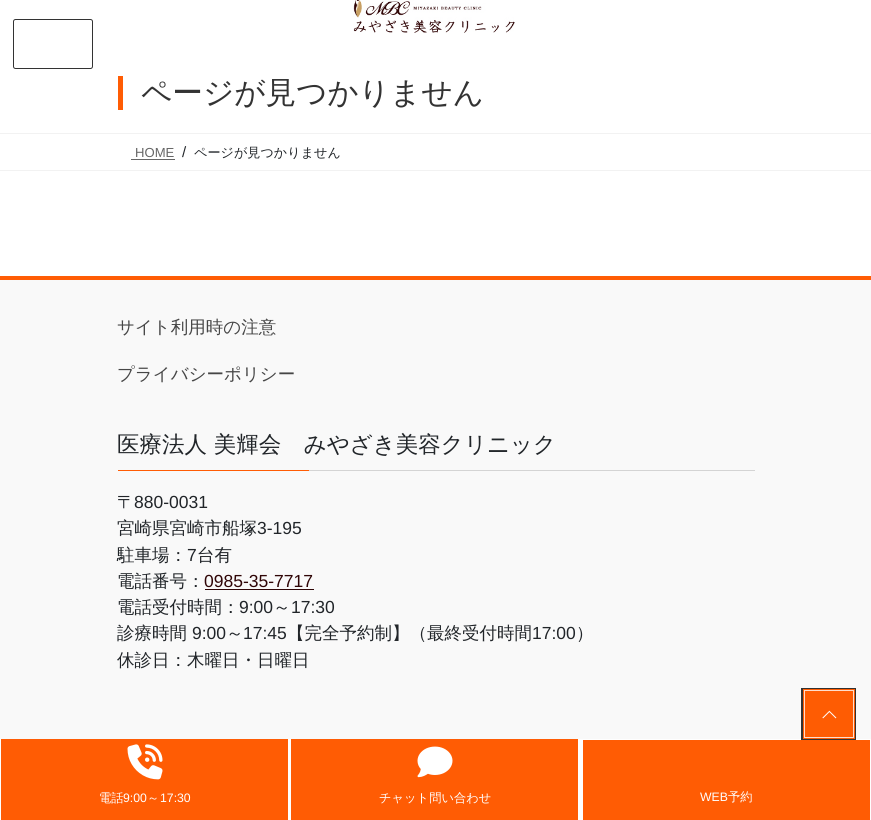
import math
import cairo

surface = cairo.ImageSurface(cairo.FORMAT_RGB24, 871, 820)
cr = cairo.Context(surface)
options = cairo.FontOptions()
options.set_hint_metrics(cairo.HINT_METRICS_OFF)
options.set_hint_style(cairo.HINT_STYLE_NONE)
cr.set_font_options(options)
cr.set_miter_limit(4)


def rgb(code):
    cr.set_source_rgb(*(v / 255 for v in bytes.fromhex(code[-6:])))


def rrect(x, y, w, h, r):
    cr.new_sub_path()
    for i, (u, v) in enumerate([(x + w - r, y + h - r), (x + r, y + h - r), (x + r, y + r), (x + w - r, y + r)]):
        cr.arc(u, v, r, i * math.pi / 2, (i + 1) * math.pi / 2)
    cr.close_path()


def image(path, x, y, w, h):
    cr.save()
    cr.set_source_surface(cairo.ImageSurface.create_from_png(path), x, y)
    cr.rectangle(x, y, w, h)
    cr.fill()
    cr.restore()


rgb("#ffffff")
cr.paint()
rrect(13.5, 19.5, 79, 49, 2)
rgb("#333333")
cr.set_line_width(1)
cr.stroke()
image("img/1.png", 353, 0, 162, 33)
for x, y, w, h, color in [
    (118, 76, 5, 34, "#ff5c04"),
    (0, 133, 871, 1, "#f2f2f2"),
    (0, 170, 871, 1, "#f2f2f2"),
    (131, 159, 44, 1, "#666666"),
    (0, 280, 871, 459, "#f9f9f9"),
    (0, 276, 871, 4, "#ff5c04"),
    (309, 470, 446, 1, "#d4d4d4"),
    (118, 470, 191, 1, "#ff5c04"),
    (205, 589, 109, 1, "#2f0506"),
]:
    rgb(color)
    cr.rectangle(x, y, w, h)
    cr.fill()
cr.rectangle(802.5, 689.5, 52, 49)
cr.set_source_rgba(0, 0, 0, 0.8)
cr.set_line_width(3)
cr.stroke()
rgb("#fe5c03")
cr.rectangle(805, 691, 48, 46)
cr.fill()
image("img/2.png", 822, 710, 15, 9)
cr.rectangle(804.5, 690.5, 49, 47)
rgb("#ffdecd")
cr.set_line_width(1)
cr.stroke()
cr.rectangle(803.5, 689.5, 51, 49)
rgb("#fe5c03")
cr.stroke()
rgb("#ff5c04")
cr.rectangle(1, 739, 287, 81)
cr.fill()
image("img/3.png", 127, 744, 36, 36)
cr.rectangle(291, 739, 287, 81)
cr.fill()
image("img/4.png", 417, 746, 36, 32)
cr.rectangle(583, 740, 287, 80)
cr.fill()
cr.select_font_face("WenQuanYi Zen Hei Medium")
cr.set_font_size(30.6)
rgb("#333333")
cr.move_to(141, 103)
cr.show_text("ページが見つかりません")
cr.select_font_face("Liberation Sans")
cr.set_font_size(13.1)
rgb("#666666")
cr.move_to(135, 157)
cr.show_text("HOME")
cr.set_font_size(15)
rgb("#212529")
cr.move_to(182, 157)
cr.show_text("/")
cr.select_font_face("WenQuanYi Zen Hei Medium")
cr.set_font_size(13.1)
cr.move_to(194, 157)
cr.show_text("ページが見つかりません")
cr.set_font_size(17.5)
rgb("#464646")
cr.move_to(117, 333)
cr.show_text("サイト利用時の注意")
cr.move_to(117, 380)
cr.show_text("プライバシーポリシー")
cr.set_font_size(22.5)
rgb("#212529")
cr.move_to(117, 452)
cr.show_text("医療法人 美輝会　みやざき美容クリニック")
cr.set_font_size(17.5)
cr.move_to(117, 508)
cr.show_text("〒")
cr.select_font_face("Liberation Sans")
cr.move_to(134, 508)
cr.show_text("880-0031")
cr.select_font_face("WenQuanYi Zen Hei Medium")
cr.move_to(117, 534)
cr.show_text("宮崎県宮崎市船塚")
cr.select_font_face("Liberation Sans")
cr.move_to(257, 534)
cr.show_text("3-195")
cr.select_font_face("WenQuanYi Zen Hei Medium")
cr.move_to(117, 561)
cr.show_text("駐車場：")
cr.select_font_face("Liberation Sans")
cr.move_to(187, 561)
cr.show_text("7")
cr.select_font_face("WenQuanYi Zen Hei Medium")
cr.move_to(197, 561)
cr.show_text("台有")
cr.move_to(117, 587)
cr.show_text("電話番号：")
cr.select_font_face("Liberation Sans")
rgb("#2f0506")
cr.move_to(204, 587)
cr.show_text("0985-35-7717")
cr.select_font_face("WenQuanYi Zen Hei Medium")
rgb("#212529")
cr.move_to(117, 613)
cr.show_text("電話受付時間：")
cr.select_font_face("Liberation Sans")
cr.move_to(239, 613)
cr.show_text("9:00")
cr.select_font_face("WenQuanYi Zen Hei Medium")
cr.move_to(273, 613)
cr.show_text("～")
cr.select_font_face("Liberation Sans")
cr.move_to(291, 613)
cr.show_text("17:30")
cr.select_font_face("WenQuanYi Zen Hei Medium")
cr.move_to(117, 639)
cr.show_text("診療時間")
cr.select_font_face("Liberation Sans")
cr.move_to(192, 639)
cr.show_text("9:00")
cr.select_font_face("WenQuanYi Zen Hei Medium")
cr.move_to(226, 639)
cr.show_text("～")
cr.select_font_face("Liberation Sans")
cr.move_to(243, 639)
cr.show_text("17:45")
cr.select_font_face("WenQuanYi Zen Hei Medium")
cr.move_to(287, 639)
cr.show_text("【完全予約制】（最終受付時間")
cr.select_font_face("Liberation Sans")
cr.move_to(532, 639)
cr.show_text("17:00")
cr.select_font_face("WenQuanYi Zen Hei Medium")
cr.move_to(576, 639)
cr.show_text("）")
cr.move_to(117, 666)
cr.show_text("休診日：木曜日・日曜日")
cr.set_font_size(12.25)
rgb("#ffffff")
cr.move_to(99, 802)
cr.show_text("電話")
cr.select_font_face("Liberation Sans")
cr.move_to(123, 802)
cr.show_text("9:00")
cr.select_font_face("WenQuanYi Zen Hei Medium")
cr.move_to(147, 802)
cr.show_text("～")
cr.select_font_face("Liberation Sans")
cr.move_to(160, 802)
cr.show_text("17:30")
cr.select_font_face("WenQuanYi Zen Hei Medium")
cr.move_to(379, 802)
cr.show_text("チャット問い合わせ")
cr.select_font_face("Liberation Sans")
cr.move_to(700, 801)
cr.show_text("WEB")
cr.select_font_face("WenQuanYi Zen Hei Medium")
cr.move_to(728, 801)
cr.show_text("予約")
surface.write_to_png("page.png")
